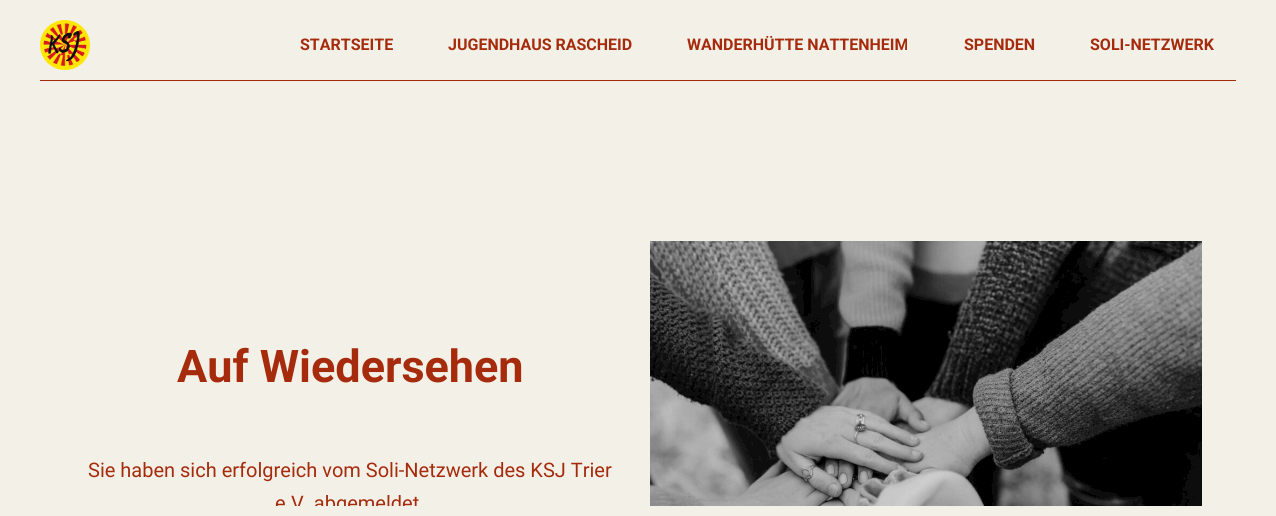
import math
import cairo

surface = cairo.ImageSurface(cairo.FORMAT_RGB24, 1276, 516)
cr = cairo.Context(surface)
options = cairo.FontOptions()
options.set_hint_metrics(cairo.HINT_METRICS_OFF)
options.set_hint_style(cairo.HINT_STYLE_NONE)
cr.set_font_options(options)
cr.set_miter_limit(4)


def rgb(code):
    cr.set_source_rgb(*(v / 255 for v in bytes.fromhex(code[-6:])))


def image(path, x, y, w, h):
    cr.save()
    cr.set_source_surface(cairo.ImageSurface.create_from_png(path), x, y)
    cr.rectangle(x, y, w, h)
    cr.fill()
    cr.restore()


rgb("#f3f0e7")
cr.paint()
rgb("#a62b0c")
cr.rectangle(40, 80, 1196, 1)
cr.fill()
image("img/1.png", 40, 20, 50, 50)
image("img/2.png", 650, 241, 552, 265)
cr.select_font_face("Roboto", cairo.FONT_SLANT_NORMAL, cairo.FONT_WEIGHT_BOLD)
cr.set_font_size(16)
for x, y, s in [
    (300, 50, "STARTSEITE"),
    (448, 50, "JUGENDHAUS RASCHEID"),
    (687, 50, "WANDERHÜTTE NATTENHEIM"),
    (964, 50, "SPENDEN"),
    (1090, 50, "SOLI-NETZWERK"),
]:
    cr.move_to(x, y)
    cr.show_text(s)
cr.set_font_size(45)
cr.move_to(177, 382)
cr.show_text("Auf Wiedersehen")
cr.select_font_face("Roboto")
cr.set_font_size(20)
cr.move_to(88, 477)
cr.show_text("Sie haben sich erfolgreich vom Soli-Netzwerk des KSJ Trier")
cr.move_to(275, 510)
cr.show_text("e.V. abgemeldet")
rgb("#f3f0e7")
cr.rectangle(276, 506, 143, 9)
cr.fill()
surface.write_to_png("page.png")
